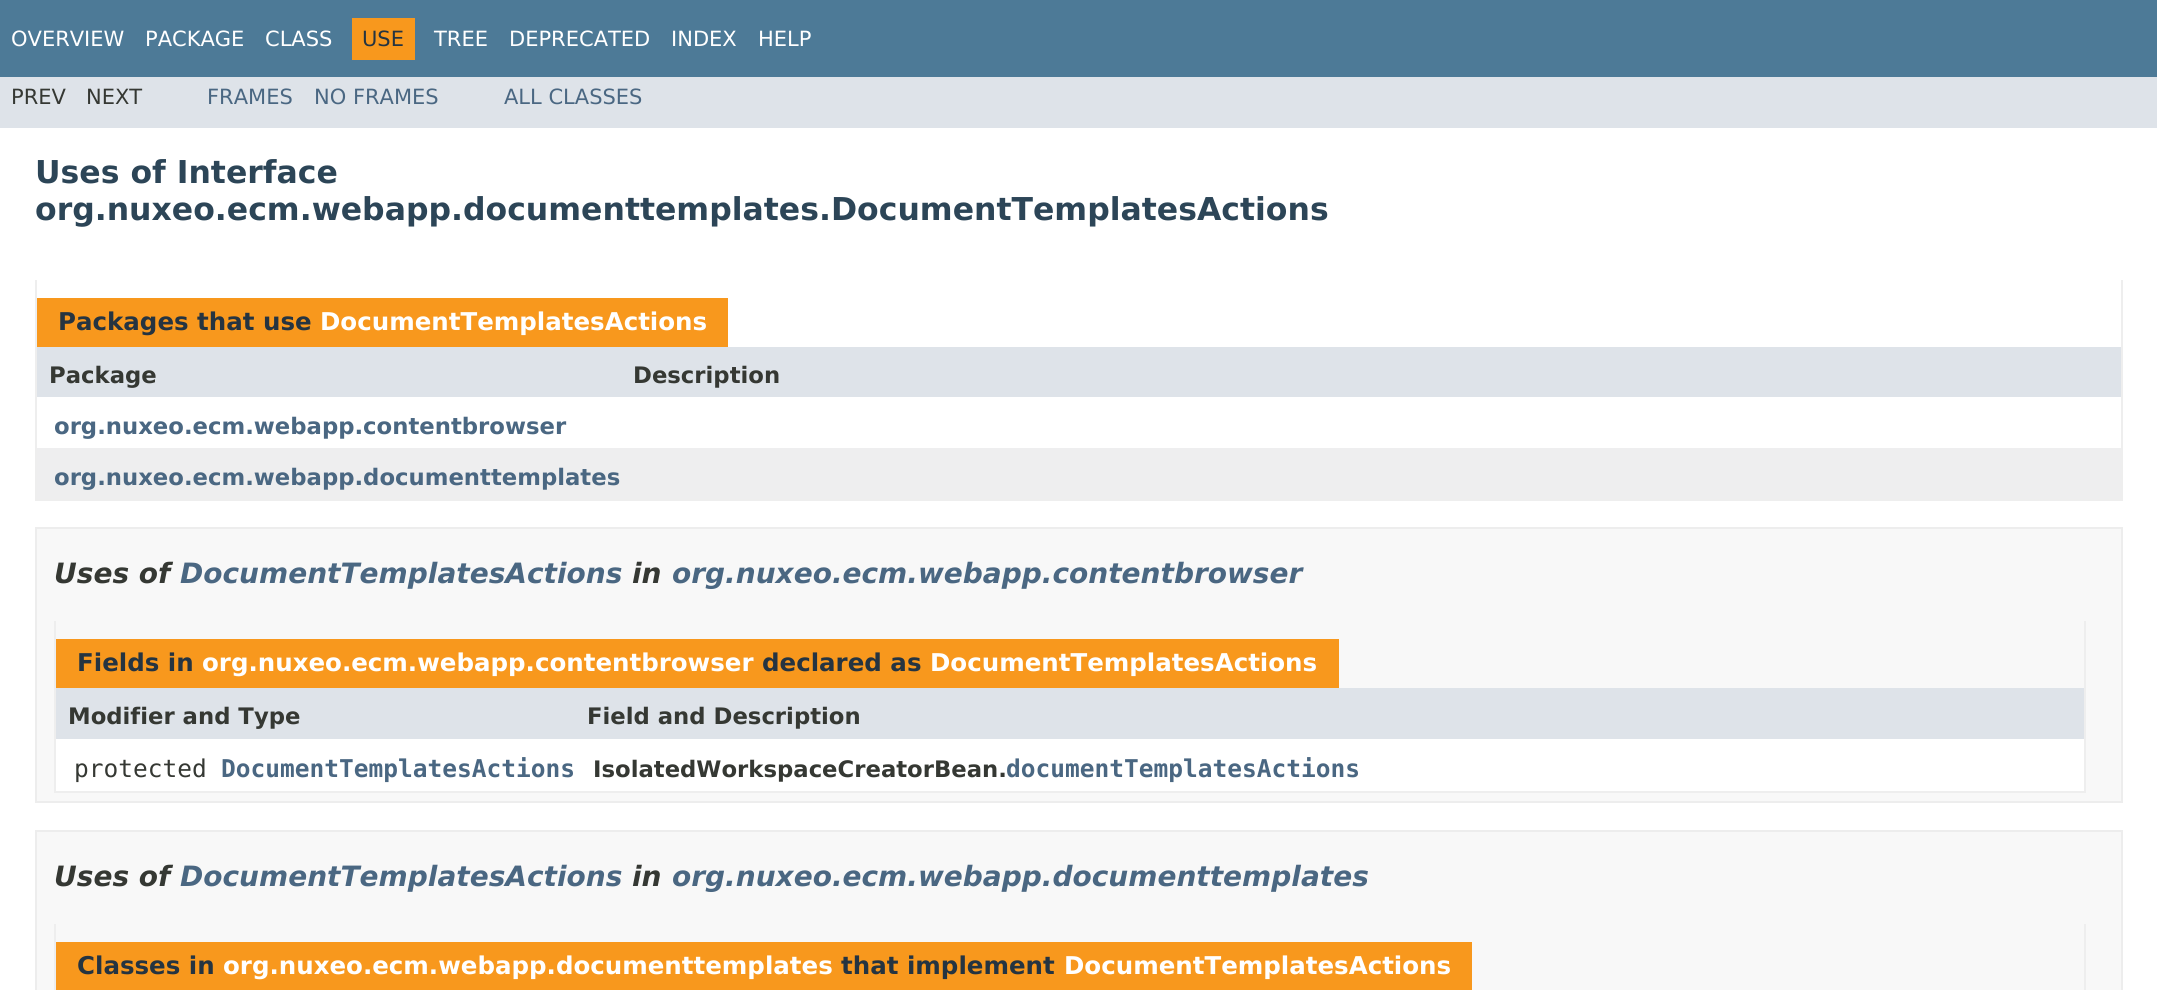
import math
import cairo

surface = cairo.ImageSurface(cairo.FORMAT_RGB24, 2157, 990)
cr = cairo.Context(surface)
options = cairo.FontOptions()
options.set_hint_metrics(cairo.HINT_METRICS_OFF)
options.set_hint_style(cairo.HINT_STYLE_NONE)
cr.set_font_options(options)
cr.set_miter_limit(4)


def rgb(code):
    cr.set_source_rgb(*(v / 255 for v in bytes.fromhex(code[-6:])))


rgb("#ffffff")
cr.paint()
for x, y, w, h, color in [
    (0, 0, 2157, 77, "#4d7a97"),
    (352, 18, 63, 42, "#f8981d"),
    (0, 77, 2157, 51, "#dee3e9"),
    (2121, 280, 2, 221, "#eeeeee"),
    (35, 499, 2088, 2, "#eeeeee"),
    (35, 280, 2, 221, "#eeeeee"),
    (37, 298, 691, 49, "#f8981d"),
    (37, 347, 2084, 50, "#dee3e9"),
    (37, 448, 2084, 51, "#eeeeef"),
]:
    rgb(color)
    cr.rectangle(x, y, w, h)
    cr.fill()
rgb("#f8f8f8")
cr.rectangle(36, 528, 2086, 274)
cr.fill_preserve()
rgb("#ededed")
cr.stroke()
for x, y, w, h, color in [
    (2084, 621, 2, 172, "#eeeeee"),
    (54, 791, 2032, 2, "#eeeeee"),
    (54, 621, 2, 172, "#eeeeee"),
    (56, 639, 1283, 49, "#f8981d"),
    (56, 688, 2028, 51, "#dee3e9"),
    (56, 739, 2028, 52, "#ffffff"),
]:
    rgb(color)
    cr.rectangle(x, y, w, h)
    cr.fill()
rgb("#f8f8f8")
cr.rectangle(36, 831, 2086, 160)
cr.fill_preserve()
rgb("#ededed")
cr.stroke()
for x, y, w, h, color in [
    (2084, 924, 2, 66, "#eeeeee"),
    (54, 924, 2, 66, "#eeeeee"),
    (56, 942, 1416, 48, "#f8981d"),
]:
    rgb(color)
    cr.rectangle(x, y, w, h)
    cr.fill()
cr.select_font_face("DejaVu Sans")
cr.set_font_size(21)
rgb("#ffffff")
for x, y, s in [
    (11, 46, "OVERVIEW"),
    (145, 46, "PACKAGE"),
    (265, 46, "CLASS"),
]:
    cr.move_to(x, y)
    cr.show_text(s)
rgb("#253441")
cr.move_to(362, 46)
cr.show_text("USE")
rgb("#ffffff")
for x, y, s in [
    (434, 46, "TREE"),
    (509, 46, "DEPRECATED"),
    (671, 46, "INDEX"),
    (758, 46, "HELP"),
]:
    cr.move_to(x, y)
    cr.show_text(s)
rgb("#353833")
cr.move_to(11, 104)
cr.show_text("PREV")
cr.move_to(86, 104)
cr.show_text("NEXT")
rgb("#4a6782")
for x, y, s in [
    (207, 104, "FRAMES"),
    (314, 104, "NO FRAMES"),
    (504, 104, "ALL CLASSES"),
]:
    cr.move_to(x, y)
    cr.show_text(s)
cr.select_font_face("DejaVu Sans", cairo.FONT_SLANT_NORMAL, cairo.FONT_WEIGHT_BOLD)
cr.set_font_size(31.5)
rgb("#2c4557")
cr.move_to(35, 183)
cr.show_text("Uses of Interface")
cr.move_to(35, 220)
cr.show_text("org.nuxeo.ecm.webapp.documenttemplates.DocumentTemplatesActions")
cr.set_font_size(24.5)
rgb("#253441")
cr.move_to(58, 330)
cr.show_text("Packages that use")
rgb("#ffffff")
cr.move_to(320, 330)
cr.show_text("DocumentTemplatesActions")
cr.set_font_size(22.75)
rgb("#353833")
cr.move_to(49, 383)
cr.show_text("Package")
cr.move_to(633, 383)
cr.show_text("Description")
rgb("#4a6782")
cr.move_to(54, 434)
cr.show_text("org.nuxeo.ecm.webapp.contentbrowser")
cr.move_to(54, 485)
cr.show_text("org.nuxeo.ecm.webapp.documenttemplates")
cr.select_font_face("DejaVu Sans", cairo.FONT_SLANT_ITALIC, cairo.FONT_WEIGHT_BOLD)
cr.set_font_size(28)
rgb("#353833")
cr.move_to(54, 583)
cr.show_text("Uses of")
rgb("#4a6782")
cr.move_to(180, 583)
cr.show_text("DocumentTemplatesActions")
rgb("#353833")
cr.move_to(632, 583)
cr.show_text("in")
rgb("#4a6782")
cr.move_to(672, 583)
cr.show_text("org.nuxeo.ecm.webapp.contentbrowser")
cr.select_font_face("DejaVu Sans", cairo.FONT_SLANT_NORMAL, cairo.FONT_WEIGHT_BOLD)
cr.set_font_size(24.5)
rgb("#253441")
cr.move_to(77, 671)
cr.show_text("Fields in")
rgb("#ffffff")
cr.move_to(202, 671)
cr.show_text("org.nuxeo.ecm.webapp.contentbrowser")
rgb("#253441")
cr.move_to(762, 671)
cr.show_text("declared as")
rgb("#ffffff")
cr.move_to(930, 671)
cr.show_text("DocumentTemplatesActions")
cr.set_font_size(22.75)
rgb("#353833")
cr.move_to(68, 724)
cr.show_text("Modifier and Type")
cr.move_to(587, 724)
cr.show_text("Field and Description")
cr.select_font_face("DejaVu Sans Mono")
cr.set_font_size(24.5)
cr.move_to(74, 777)
cr.show_text("protected")
cr.select_font_face("DejaVu Sans Mono", cairo.FONT_SLANT_NORMAL, cairo.FONT_WEIGHT_BOLD)
rgb("#4a6782")
cr.move_to(221, 777)
cr.show_text("DocumentTemplatesActions")
cr.select_font_face("DejaVu Sans", cairo.FONT_SLANT_NORMAL, cairo.FONT_WEIGHT_BOLD)
cr.set_font_size(22.75)
rgb("#353833")
cr.move_to(593, 777)
cr.show_text("IsolatedWorkspaceCreatorBean.")
cr.select_font_face("DejaVu Sans Mono", cairo.FONT_SLANT_NORMAL, cairo.FONT_WEIGHT_BOLD)
cr.set_font_size(24.5)
rgb("#4a6782")
cr.move_to(1006, 777)
cr.show_text("documentTemplatesActions")
cr.select_font_face("DejaVu Sans", cairo.FONT_SLANT_ITALIC, cairo.FONT_WEIGHT_BOLD)
cr.set_font_size(28)
rgb("#353833")
cr.move_to(54, 886)
cr.show_text("Uses of")
rgb("#4a6782")
cr.move_to(180, 886)
cr.show_text("DocumentTemplatesActions")
rgb("#353833")
cr.move_to(632, 886)
cr.show_text("in")
rgb("#4a6782")
cr.move_to(672, 886)
cr.show_text("org.nuxeo.ecm.webapp.documenttemplates")
cr.select_font_face("DejaVu Sans", cairo.FONT_SLANT_NORMAL, cairo.FONT_WEIGHT_BOLD)
cr.set_font_size(24.5)
rgb("#253441")
cr.move_to(77, 974)
cr.show_text("Classes in")
rgb("#ffffff")
cr.move_to(223, 974)
cr.show_text("org.nuxeo.ecm.webapp.documenttemplates")
rgb("#253441")
cr.move_to(841, 974)
cr.show_text("that implement")
rgb("#ffffff")
cr.move_to(1064, 974)
cr.show_text("DocumentTemplatesActions")
surface.write_to_png("page.png")
